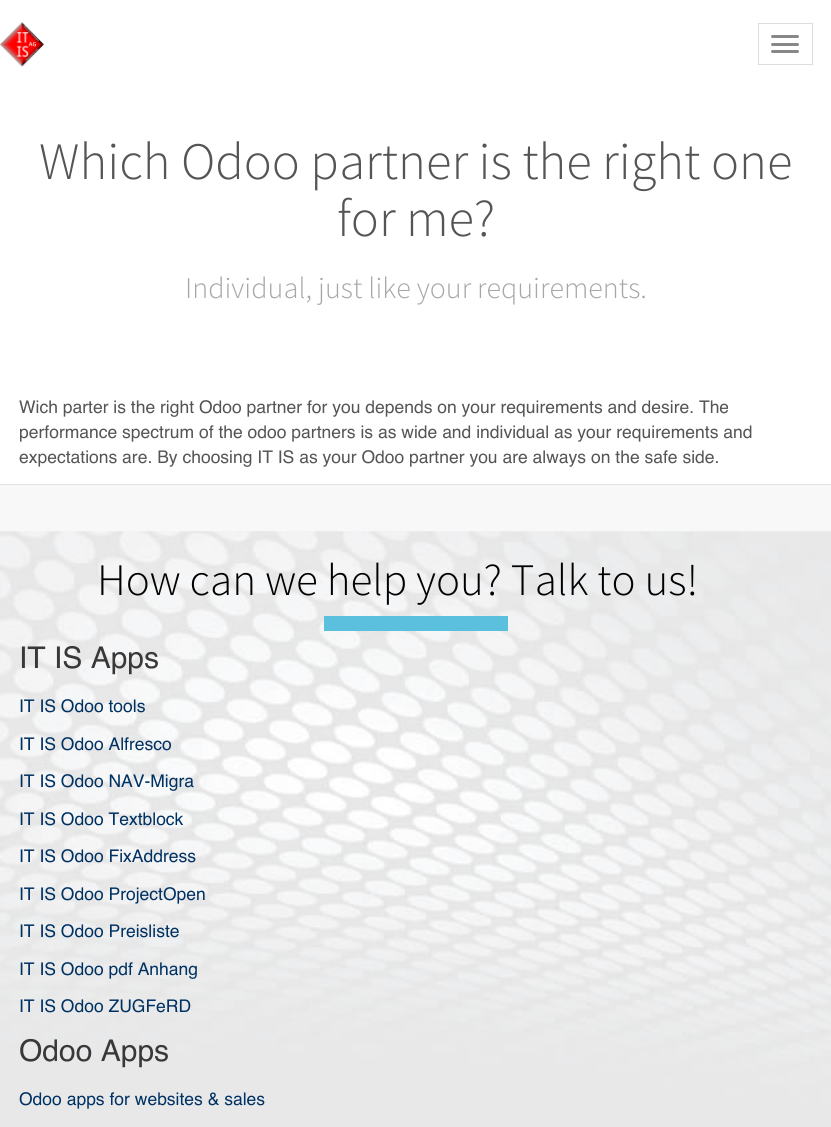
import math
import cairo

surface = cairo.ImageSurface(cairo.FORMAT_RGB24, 831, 1127)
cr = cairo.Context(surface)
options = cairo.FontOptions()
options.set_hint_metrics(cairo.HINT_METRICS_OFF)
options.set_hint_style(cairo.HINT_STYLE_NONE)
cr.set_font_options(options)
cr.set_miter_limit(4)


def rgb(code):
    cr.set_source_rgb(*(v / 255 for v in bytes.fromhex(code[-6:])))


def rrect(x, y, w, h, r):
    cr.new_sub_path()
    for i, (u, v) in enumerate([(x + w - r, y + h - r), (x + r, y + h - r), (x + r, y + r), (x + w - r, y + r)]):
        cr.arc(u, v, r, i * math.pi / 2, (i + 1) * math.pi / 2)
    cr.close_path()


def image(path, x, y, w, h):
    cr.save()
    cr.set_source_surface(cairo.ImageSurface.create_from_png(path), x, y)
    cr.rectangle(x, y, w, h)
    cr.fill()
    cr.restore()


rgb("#ffffff")
cr.paint()
image("img/1.png", 0, 22, 44, 45)
cr.rectangle(758.5, 23.5, 54, 41)
rgb("#dddddd")
cr.set_line_width(1)
cr.stroke()
rgb("#888888")
rrect(771, 35, 28, 3, 1.5)
cr.fill()
rrect(771, 43, 28, 3, 1.5)
cr.fill()
rrect(771, 50, 28, 3, 1.5)
cr.fill()
rgb("#f8f8f8")
cr.rectangle(0, 485, 831, 47)
cr.fill()
rgb("#e2e2e2")
cr.rectangle(0, 484, 831, 1)
cr.fill()
image("img/2.png", 0, 531, 831, 596)
rgb("#5bc0de")
cr.rectangle(324, 616, 184, 15)
cr.fill()
cr.select_font_face("Source Sans Pro Light")
cr.set_font_size(52.5)
rgb("#555555")
cr.move_to(39, 179)
cr.show_text("Which Odoo partner is the right one")
cr.move_to(337, 236)
cr.show_text("for me?")
cr.set_font_size(30)
rgb("#a7a7a7")
cr.move_to(185, 298)
cr.show_text("Individual, just like your requirements.")
cr.select_font_face("Helvetica")
cr.set_font_size(17.5)
rgb("#555555")
for x, y, s in [
    (19, 413, "Wich parter is the right Odoo partner for you depends on your requirements and desire. The"),
    (19, 438, "performance spectrum of the odoo partners is as wide and individual as your requirements and"),
    (19, 463, "expectations are. By choosing IT IS as your Odoo partner you are always on the safe side."),
]:
    cr.move_to(x, y)
    cr.show_text(s)
cr.select_font_face("Source Sans Pro Light")
cr.set_font_size(45)
rgb("#000000")
cr.move_to(97, 595)
cr.show_text("How can we help you? Talk to us!")
cr.select_font_face("Helvetica")
cr.set_font_size(30)
rgb("#383838")
cr.move_to(19, 668)
cr.show_text("IT IS Apps")
cr.set_font_size(17.5)
rgb("#003163")
for x, y, s in [
    (19, 712, "IT IS Odoo tools"),
    (19, 750, "IT IS Odoo Alfresco"),
    (19, 787, "IT IS Odoo NAV-Migra"),
    (19, 825, "IT IS Odoo Textblock"),
    (19, 862, "IT IS Odoo FixAddress"),
    (19, 900, "IT IS Odoo ProjectOpen"),
    (19, 937, "IT IS Odoo Preisliste"),
    (19, 975, "IT IS Odoo pdf Anhang"),
    (19, 1012, "IT IS Odoo ZUGFeRD"),
]:
    cr.move_to(x, y)
    cr.show_text(s)
cr.set_font_size(30)
rgb("#383838")
cr.move_to(19, 1061)
cr.show_text("Odoo Apps")
cr.set_font_size(17.5)
rgb("#003163")
cr.move_to(19, 1105)
cr.show_text("Odoo apps for websites & sales")
surface.write_to_png("page.png")
